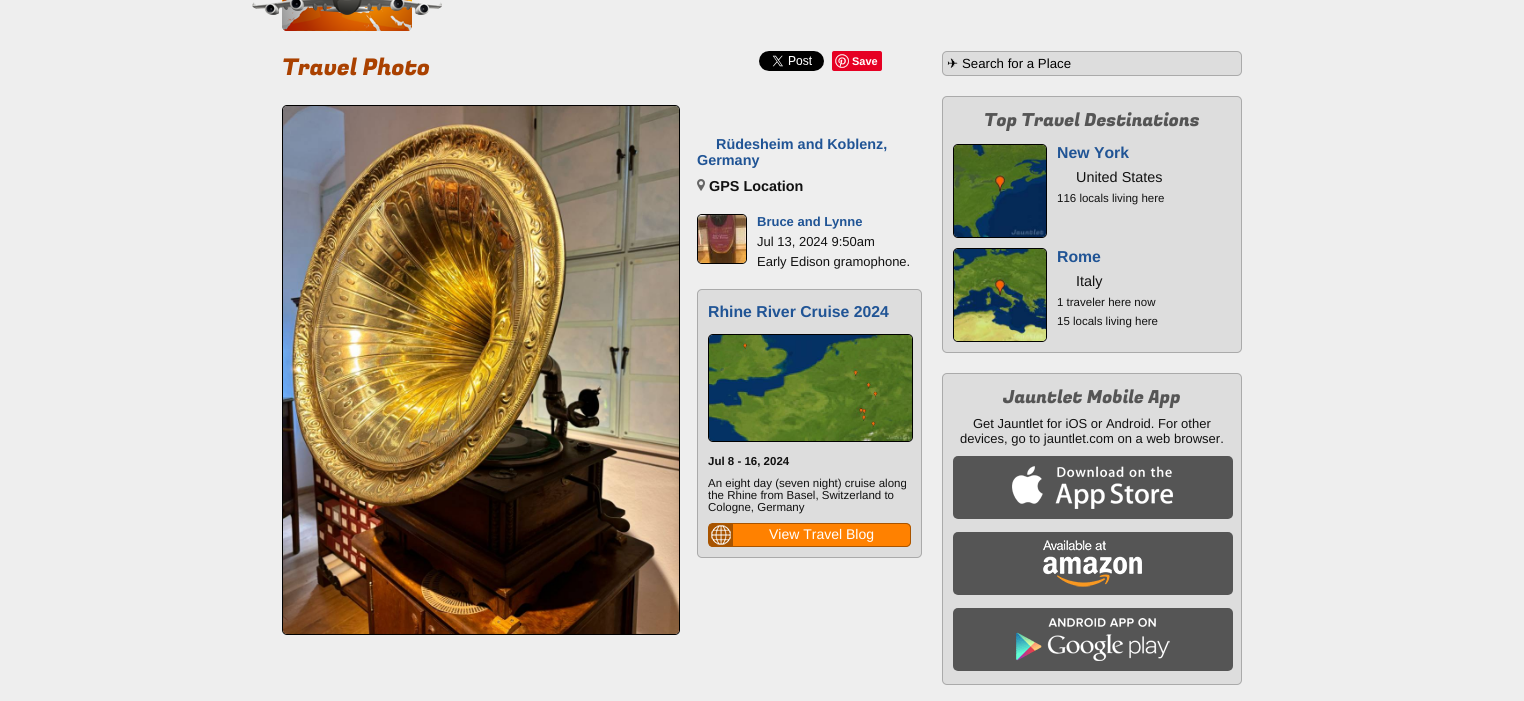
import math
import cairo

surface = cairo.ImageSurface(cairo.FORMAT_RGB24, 1524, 701)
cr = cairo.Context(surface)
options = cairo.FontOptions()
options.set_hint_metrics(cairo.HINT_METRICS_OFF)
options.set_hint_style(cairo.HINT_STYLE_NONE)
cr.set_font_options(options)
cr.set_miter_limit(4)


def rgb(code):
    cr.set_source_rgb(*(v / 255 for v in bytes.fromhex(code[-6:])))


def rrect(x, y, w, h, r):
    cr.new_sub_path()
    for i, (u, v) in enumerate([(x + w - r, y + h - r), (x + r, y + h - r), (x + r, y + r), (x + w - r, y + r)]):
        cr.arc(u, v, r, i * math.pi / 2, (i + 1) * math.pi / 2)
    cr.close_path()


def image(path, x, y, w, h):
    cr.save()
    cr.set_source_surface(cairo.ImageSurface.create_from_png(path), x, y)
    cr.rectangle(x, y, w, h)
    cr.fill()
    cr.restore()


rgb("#eeeeee")
cr.paint()
image("img/1.png", 252, 1, 190, 14)
image("img/2.png", 282, 0, 130, 31)
image("img/3.png", 759, 51, 65, 20)
rgb("#e60023")
rrect(832, 51, 50, 20, 2)
cr.fill()
image("img/4.png", 835, 54, 14, 14)
rrect(282.5, 105.5, 397, 529, 4.5)
rgb("#000000")
cr.set_line_width(1)
cr.stroke()
image("img/5.png", 283, 106, 396, 528)
image("img/6.png", 697, 179, 8, 12)
rrect(697.5, 214.5, 49, 49, 4.5)
cr.stroke()
image("img/7.png", 698, 215, 48, 48)
rgb("#dddddd")
rrect(697.5, 289.5, 224, 268, 4.5)
cr.fill_preserve()
rgb("#aaaaaa")
cr.stroke()
rrect(708.5, 334.5, 204, 107, 4.5)
rgb("#000000")
cr.stroke()
image("img/8.png", 709, 335, 203, 106)
image("img/9.png", 709, 523, 202, 24)
rrect(708.5, 523.5, 202, 23, 4.5)
rgb("#a85400")
cr.stroke()
image("img/10.png", 711, 525, 20, 20)
rgb("#dddddd")
rrect(942.5, 51.5, 299, 24, 4.5)
cr.fill_preserve()
rgb("#aaaaaa")
cr.stroke()
rgb("#dddddd")
rrect(942.5, 96.5, 299, 256, 4.5)
cr.fill_preserve()
rgb("#aaaaaa")
cr.stroke()
rrect(953.5, 144.5, 93, 93, 4.5)
rgb("#000000")
cr.stroke()
image("img/11.png", 954, 145, 92, 92)
rrect(953.5, 248.5, 93, 93, 4.5)
cr.stroke()
image("img/12.png", 954, 249, 92, 92)
rgb("#dddddd")
rrect(942.5, 373.5, 299, 311, 4.5)
cr.fill_preserve()
rgb("#aaaaaa")
cr.stroke()
image("img/13.png", 953, 456, 280, 63)
image("img/14.png", 953, 532, 280, 63)
image("img/15.png", 953, 608, 280, 63)
cr.select_font_face("Fugaz One")
cr.set_font_size(23)
rgb("#aa4100")
cr.move_to(282, 75)
cr.show_text("Travel Photo")
cr.select_font_face("Liberation Sans", cairo.FONT_SLANT_NORMAL, cairo.FONT_WEIGHT_BOLD)
cr.set_font_size(11)
rgb("#ffffff")
cr.move_to(852, 65)
cr.show_text("Save")
cr.set_font_size(14.4)
rgb("#205495")
cr.move_to(716, 149)
cr.show_text("Rüdesheim and Koblenz,")
cr.move_to(697, 165)
cr.show_text("Germany")
rgb("#111111")
cr.move_to(709, 191)
cr.show_text("GPS Location")
cr.set_font_size(13)
rgb("#205495")
cr.move_to(757, 226)
cr.show_text("Bruce and Lynne")
cr.select_font_face("Liberation Sans")
rgb("#111111")
cr.move_to(757, 246)
cr.show_text("Jul 13, 2024 9:50am")
cr.move_to(757, 266)
cr.show_text("Early Edison gramophone.")
cr.select_font_face("Liberation Sans", cairo.FONT_SLANT_NORMAL, cairo.FONT_WEIGHT_BOLD)
cr.set_font_size(15.8)
rgb("#205495")
cr.move_to(708, 317)
cr.show_text("Rhine River Cruise 2024")
cr.set_font_size(11.5)
rgb("#111111")
cr.move_to(708, 465)
cr.show_text("Jul 8 - 16, 2024")
cr.select_font_face("Liberation Sans")
for x, y, s in [
    (708, 487, "An eight day (seven night) cruise along"),
    (708, 499, "the Rhine from Basel, Switzerland to"),
    (708, 511, "Cologne, Germany"),
]:
    cr.move_to(x, y)
    cr.show_text(s)
cr.set_font_size(14)
rgb("#ffffff")
cr.move_to(769, 539)
cr.show_text("View Travel Blog")
cr.select_font_face("DejaVu Sans")
cr.set_font_size(13.25)
rgb("#000000")
cr.move_to(947, 68)
cr.show_text("✈")
cr.select_font_face("Liberation Sans")
cr.move_to(962, 68)
cr.show_text("Search for a Place")
cr.select_font_face("Fugaz One")
cr.set_font_size(18)
rgb("#555555")
cr.move_to(984, 126)
cr.show_text("Top Travel Destinations")
cr.select_font_face("Liberation Sans", cairo.FONT_SLANT_NORMAL, cairo.FONT_WEIGHT_BOLD)
cr.set_font_size(15.8)
rgb("#205495")
cr.move_to(1057, 158)
cr.show_text("New York")
cr.select_font_face("Liberation Sans")
cr.set_font_size(14.4)
rgb("#111111")
cr.move_to(1076, 182)
cr.show_text("United States")
cr.set_font_size(11.5)
cr.move_to(1057, 202)
cr.show_text("116 locals living here")
cr.select_font_face("Liberation Sans", cairo.FONT_SLANT_NORMAL, cairo.FONT_WEIGHT_BOLD)
cr.set_font_size(15.8)
rgb("#205495")
cr.move_to(1057, 262)
cr.show_text("Rome")
cr.select_font_face("Liberation Sans")
cr.set_font_size(14.4)
rgb("#111111")
cr.move_to(1076, 286)
cr.show_text("Italy")
cr.set_font_size(11.5)
cr.move_to(1057, 306)
cr.show_text("1 traveler here now")
cr.move_to(1057, 325)
cr.show_text("15 locals living here")
cr.select_font_face("Fugaz One")
cr.set_font_size(18)
rgb("#555555")
cr.move_to(1003, 403)
cr.show_text("Jauntlet Mobile App")
cr.select_font_face("Liberation Sans")
cr.set_font_size(13)
rgb("#111111")
cr.move_to(973, 428)
cr.show_text("Get Jauntlet for iOS or Android. For other")
cr.move_to(960, 443)
cr.show_text("devices, go to jauntlet.com on a web browser.")
surface.write_to_png("page.png")
